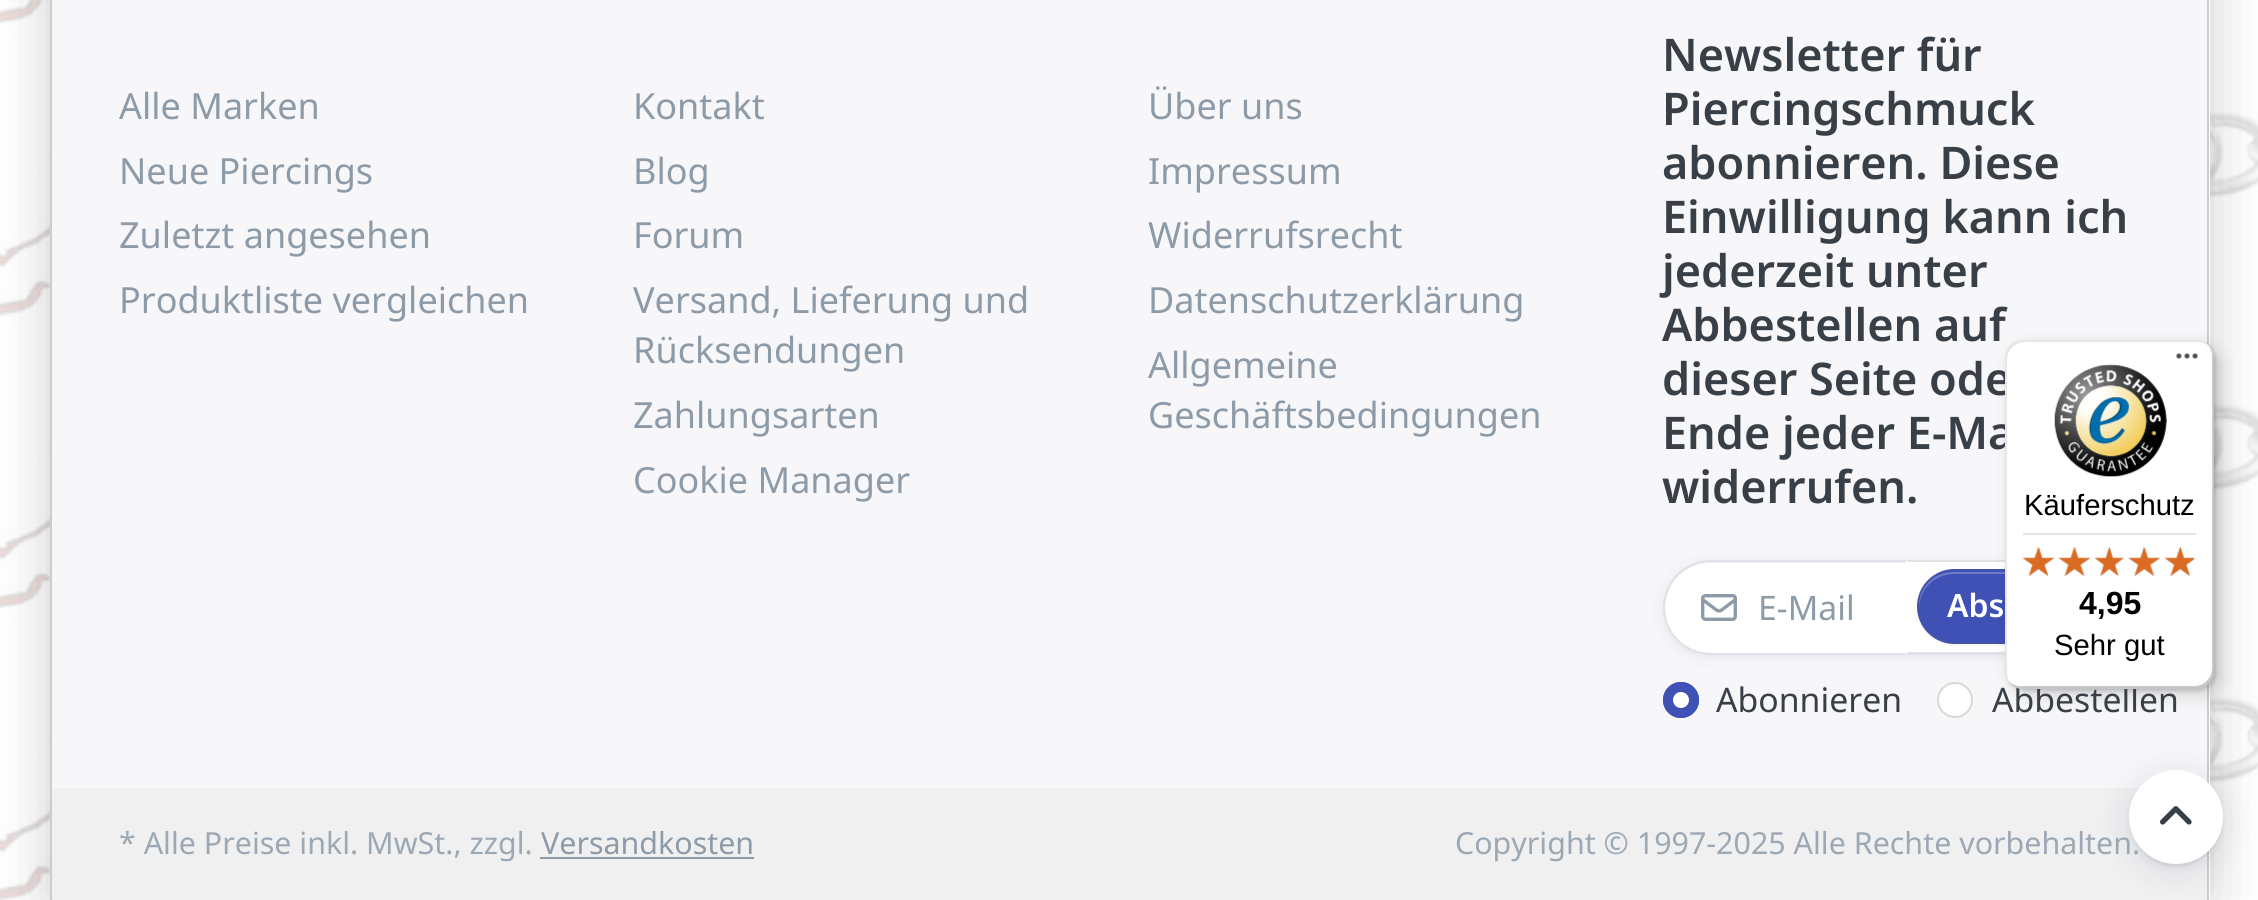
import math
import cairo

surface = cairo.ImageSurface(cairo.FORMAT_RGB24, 2258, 900)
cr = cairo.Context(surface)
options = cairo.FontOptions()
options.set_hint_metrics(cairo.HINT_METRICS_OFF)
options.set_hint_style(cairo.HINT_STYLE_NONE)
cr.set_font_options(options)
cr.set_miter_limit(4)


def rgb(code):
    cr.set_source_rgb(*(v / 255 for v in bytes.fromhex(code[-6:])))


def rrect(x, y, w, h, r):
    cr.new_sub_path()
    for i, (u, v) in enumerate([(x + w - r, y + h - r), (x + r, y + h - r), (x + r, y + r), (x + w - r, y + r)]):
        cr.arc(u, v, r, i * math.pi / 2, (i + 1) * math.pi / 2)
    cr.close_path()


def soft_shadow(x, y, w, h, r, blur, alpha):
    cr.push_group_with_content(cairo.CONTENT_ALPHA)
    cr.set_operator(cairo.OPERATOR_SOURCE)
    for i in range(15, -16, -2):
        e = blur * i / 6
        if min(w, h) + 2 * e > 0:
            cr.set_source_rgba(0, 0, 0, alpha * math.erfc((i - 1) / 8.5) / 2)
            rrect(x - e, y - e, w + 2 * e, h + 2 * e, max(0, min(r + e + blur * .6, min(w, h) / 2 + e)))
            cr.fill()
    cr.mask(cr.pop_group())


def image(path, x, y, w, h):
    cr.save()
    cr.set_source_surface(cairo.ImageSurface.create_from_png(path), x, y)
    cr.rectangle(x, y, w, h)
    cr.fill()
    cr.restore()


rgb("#ffffff")
cr.paint()
image("img/1.png", 0, 0, 2258, 900)
rgb("#000000")
soft_shadow(50, -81, 2160, 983, 0, 27, 0.2)
for x, y, w, h, color in [
    (2209, 0, 1, 900, "#ffffff"),
    (2207, 0, 2, 900, "#cccccc"),
    (50, 0, 2, 900, "#cccccc"),
    (52, 0, 2155, 788, "#f7f7f9"),
]:
    rgb(color)
    cr.rectangle(x, y, w, h)
    cr.fill()
rgb("#1a214b")
soft_shadow(1667, 567, 468, 86, 43, 9, 0.12)
rgb("#ffffff")
cr.new_path()
cr.move_to(1710, 563)
cr.line_to(1906, 563)
cr.line_to(1906, 653)
cr.line_to(1710, 653)
cr.curve_to(1685, 653, 1665, 633, 1665, 608)
cr.curve_to(1665, 583, 1685, 563, 1710, 563)
cr.close_path()
cr.fill()
cr.new_path()
cr.move_to(1710.5, 561)
cr.line_to(1907, 561)
cr.line_to(1907, 654)
cr.line_to(1710.5, 654)
cr.curve_to(1685, 654, 1664, 633, 1664, 607.5)
cr.curve_to(1664, 582, 1685, 561, 1710.5, 561)
cr.close_path()
rgb("#dee2e6")
cr.stroke()
image("img/2.png", 1701, 594, 36, 27)
rgb("#ffffff")
cr.rectangle(1906, 560, 99, 95)
cr.fill()
rgb("#dee2e6")
cr.new_path()
cr.move_to(1908, 562)
cr.line_to(1906, 560)
cr.line_to(2097, 560)
cr.curve_to(2108, 561, 2119, 566, 2126, 574)
cr.line_to(2124, 576)
cr.curve_to(2116, 567, 2104, 562, 2092, 562)
cr.close_path()
cr.fill()
cr.new_path()
cr.move_to(1906, 655)
cr.line_to(1908, 652)
cr.line_to(2092, 652)
cr.curve_to(2104, 652, 2116, 647, 2124, 639)
cr.line_to(2126, 641)
cr.curve_to(2119, 649, 2109, 654, 2097, 655)
cr.close_path()
cr.fill()
rgb("#ffffff")
cr.new_path()
cr.move_to(1906, 654)
cr.line_to(1906, 560)
cr.line_to(1908, 562)
cr.line_to(1908, 652)
cr.close_path()
cr.fill()
rgb("#f6f6f6")
cr.new_path()
cr.move_to(1917, 608)
cr.line_to(1917, 609)
cr.curve_to(1917, 629, 1934, 646, 1954, 646)
cr.line_to(2092, 646)
cr.curve_to(2112, 646, 2129, 629, 2129, 609)
cr.line_to(2128, 601)
cr.line_to(2128, 606)
cr.curve_to(2128, 627, 2112, 644, 2091, 644)
cr.line_to(1954, 644)
cr.curve_to(1934, 644, 1918, 628, 1917, 608)
cr.close_path()
cr.fill()
rgb("#3f51b5")
rrect(1917, 569, 212, 75, 37.5)
cr.fill()
rgb("#6f7dc8")
cr.new_path()
cr.move_to(1954, 574)
cr.line_to(2091, 574)
cr.curve_to(2111, 574, 2125, 588, 2126, 608)
cr.line_to(2126, 606)
cr.curve_to(2126, 587, 2111, 572, 2092, 572)
cr.line_to(1954, 572)
cr.curve_to(1934, 572, 1919, 587, 1919, 606)
cr.line_to(1919, 608)
cr.curve_to(1920, 588, 1935, 574, 1954, 574)
cr.close_path()
cr.fill()
rrect(1918, 570, 210, 73, 36.5)
cr.set_source_rgba(0.349, 0.38, 0.404, 0.15)
cr.stroke()
rgb("#3f51b5")
cr.arc(1681, 700, 18, 0, 2 * math.pi)
cr.fill()
rgb("#ffffff")
cr.arc(1681, 700, 8, 0, 2 * math.pi)
cr.fill()
cr.arc(1681, 700, 17, 0, 2 * math.pi)
rgb("#3f51b5")
cr.stroke()
rgb("#ffffff")
cr.arc(1955, 700, 18, 0, 2 * math.pi)
cr.fill()
cr.arc(1955, 700, 17, 0, 2 * math.pi)
cr.set_source_rgba(0, 0, 0, 0.15)
cr.stroke()
rgb("#f0f0f1")
cr.rectangle(52, 788, 2155, 112)
cr.fill()
rgb("#8d9ba9")
cr.rectangle(540, 857, 214, 2)
cr.fill()
rgb("#000000")
soft_shadow(2133, 779, 86, 85, 42.5, 3.5, 0.19)
rgb("#1a214b")
soft_shadow(2133, 779, 86, 85, 42.5, 18, 0.15)
rgb("#000000")
soft_shadow(2012, 347, 209, 348, 18, 9, 0.15)
soft_shadow(2007, 342, 209, 349, 18, 2, 0.15)
cr.select_font_face("Noto Sans")
cr.set_font_size(36)
rgb("#8d9ba9")
for x, y, s in [
    (119, 119, "Alle Marken"),
    (119, 184, "Neue Piercings"),
    (119, 248, "Zuletzt angesehen"),
    (119, 313, "Produktliste vergleichen"),
    (633, 119, "Kontakt"),
    (633, 184, "Blog"),
    (633, 248, "Forum"),
    (633, 313, "Versand, Lieferung und"),
    (633, 363, "Rücksendungen"),
    (633, 428, "Zahlungsarten"),
    (633, 493, "Cookie Manager"),
    (1148, 119, "Über uns"),
    (1148, 184, "Impressum"),
    (1148, 248, "Widerrufsrecht"),
    (1148, 313, "Datenschutzerklärung"),
    (1148, 378, "Allgemeine"),
    (1148, 428, "Geschäftsbedingungen"),
]:
    cr.move_to(x, y)
    cr.show_text(s)
cr.select_font_face("Noto Sans SemiBold")
cr.set_font_size(45)
rgb("#393f46")
for x, y, s in [
    (1662, 71, "Newsletter für"),
    (1662, 125, "Piercingschmuck"),
    (1662, 179, "abonnieren. Diese"),
    (1662, 233, "Einwilligung kann ich"),
    (1662, 287, "jederzeit unter"),
    (1662, 341, "Abbestellen auf"),
    (1662, 395, "dieser Seite ode"),
    (1662, 449, "Ende jeder E-Ma"),
    (1662, 503, "widerrufen."),
]:
    cr.move_to(x, y)
    cr.show_text(s)
cr.select_font_face("Noto Sans")
cr.set_font_size(33.75)
rgb("#8d9ba9")
cr.move_to(1758, 620)
cr.show_text("E-Mail")
cr.select_font_face("Noto Sans SemiBold")
cr.set_font_size(32)
rgb("#ffffff")
cr.move_to(1947, 617)
cr.show_text("Abs")
cr.select_font_face("Noto Sans")
cr.set_font_size(33.75)
rgb("#393f46")
cr.move_to(1716, 712)
cr.show_text("Abonnieren")
cr.move_to(1992, 712)
cr.show_text("Abbestellen")
cr.set_font_size(30.4)
rgb("#9ca8b4")
cr.move_to(119, 854)
cr.show_text("* Alle Preise inkl. MwSt., zzgl.")
rgb("#8d9ba9")
cr.move_to(541, 854)
cr.show_text("Versandkosten")
rgb("#9ca8b4")
cr.move_to(1455, 854)
cr.show_text("Copyright © 1997-2025 Alle Rechte vorbehalten.")
rgb("#ffffff")
cr.new_path()
cr.arc(2176, 817, 47, 0, 2 * math.pi)
cr.fill()
image("img/3.png", 2160, 806, 32, 19)
rrect(2005, 340, 209, 349, 18)
cr.fill()
cr.set_source_rgba(0, 0, 0, 0.1)
cr.new_path()
cr.move_to(2025, 342)
cr.line_to(2198, 342)
cr.curve_to(2202, 342, 2206, 344, 2210, 346)
cr.curve_to(2206, 342, 2201, 340, 2196, 340)
cr.line_to(2023, 340)
cr.curve_to(2013, 340, 2005, 348, 2005, 358)
cr.line_to(2005, 671)
cr.curve_to(2005, 676, 2007, 681, 2011, 685)
cr.curve_to(2009, 681, 2007, 677, 2007, 673)
cr.line_to(2007, 360)
cr.curve_to(2007, 350, 2015, 342, 2025, 342)
cr.close_path()
cr.fill()
cr.set_source_rgba(0, 0, 0, 0.2)
cr.new_path()
cr.move_to(2008, 681)
cr.curve_to(2012, 686, 2017, 689, 2023, 689)
cr.line_to(2196, 689)
cr.curve_to(2206, 689, 2214, 681, 2214, 671)
cr.line_to(2214, 358)
cr.curve_to(2214, 353, 2212, 348, 2208, 344)
cr.curve_to(2210, 348, 2212, 352, 2212, 356)
cr.line_to(2212, 668)
cr.curve_to(2212, 678, 2204, 686, 2194, 686)
cr.line_to(2020, 686)
cr.curve_to(2016, 686, 2012, 684, 2008, 681)
cr.close_path()
cr.fill()
cr.set_source_rgba(0.196, 0.196, 0.196, 0.2)
cr.new_path()
cr.move_to(2009, 683)
cr.curve_to(2013, 687, 2018, 689, 2023, 689)
cr.line_to(2196, 689)
cr.curve_to(2206, 689, 2214, 681, 2214, 671)
cr.line_to(2214, 358)
cr.curve_to(2214, 355, 2213, 352, 2212, 349)
cr.curve_to(2213, 351, 2213, 354, 2213, 356)
cr.line_to(2213, 669)
cr.curve_to(2213, 679, 2205, 687, 2195, 687)
cr.line_to(2021, 687)
cr.curve_to(2017, 687, 2013, 685, 2009, 683)
cr.close_path()
cr.fill()
cr.set_source_rgba(1, 1, 1, 0.3)
cr.new_path()
cr.move_to(2007, 678)
cr.curve_to(2009, 685, 2016, 689, 2023, 689)
cr.line_to(2196, 689)
cr.curve_to(2206, 689, 2214, 681, 2214, 671)
cr.line_to(2214, 358)
cr.curve_to(2214, 353, 2212, 348, 2209, 345)
cr.curve_to(2211, 348, 2213, 352, 2213, 357)
cr.line_to(2213, 669)
cr.curve_to(2213, 679, 2205, 687, 2195, 687)
cr.line_to(2022, 687)
cr.curve_to(2015, 687, 2010, 683, 2007, 678)
cr.close_path()
cr.fill()
image("img/4.png", 2175, 353, 23, 7)
image("img/5.png", 2054, 364, 113, 114)
cr.select_font_face("Liberation Sans")
cr.set_font_size(29.25)
rgb("#000000")
cr.move_to(2024, 515)
cr.show_text("Käuferschutz")
rgb("#e5e5e5")
cr.rectangle(2023, 533, 173, 2)
cr.fill()
image("img/11.png", 2023, 547, 31, 29)
image("img/6.png", 2022, 546, 32, 30)
image("img/12.png", 2059, 547, 31, 29)
image("img/7.png", 2058, 546, 33, 30)
image("img/13.png", 2095, 547, 29, 29)
image("img/8.png", 2094, 546, 30, 30)
image("img/14.png", 2128, 547, 32, 29)
image("img/9.png", 2128, 546, 32, 30)
image("img/15.png", 2165, 547, 31, 29)
image("img/10.png", 2164, 546, 30, 30)
cr.select_font_face("Liberation Sans", cairo.FONT_SLANT_NORMAL, cairo.FONT_WEIGHT_BOLD)
cr.set_font_size(32)
rgb("#000000")
cr.move_to(2079, 614)
cr.show_text("4,95")
cr.select_font_face("Liberation Sans")
cr.set_font_size(29.25)
cr.move_to(2054, 655)
cr.show_text("Sehr gut")
surface.write_to_png("page.png")
